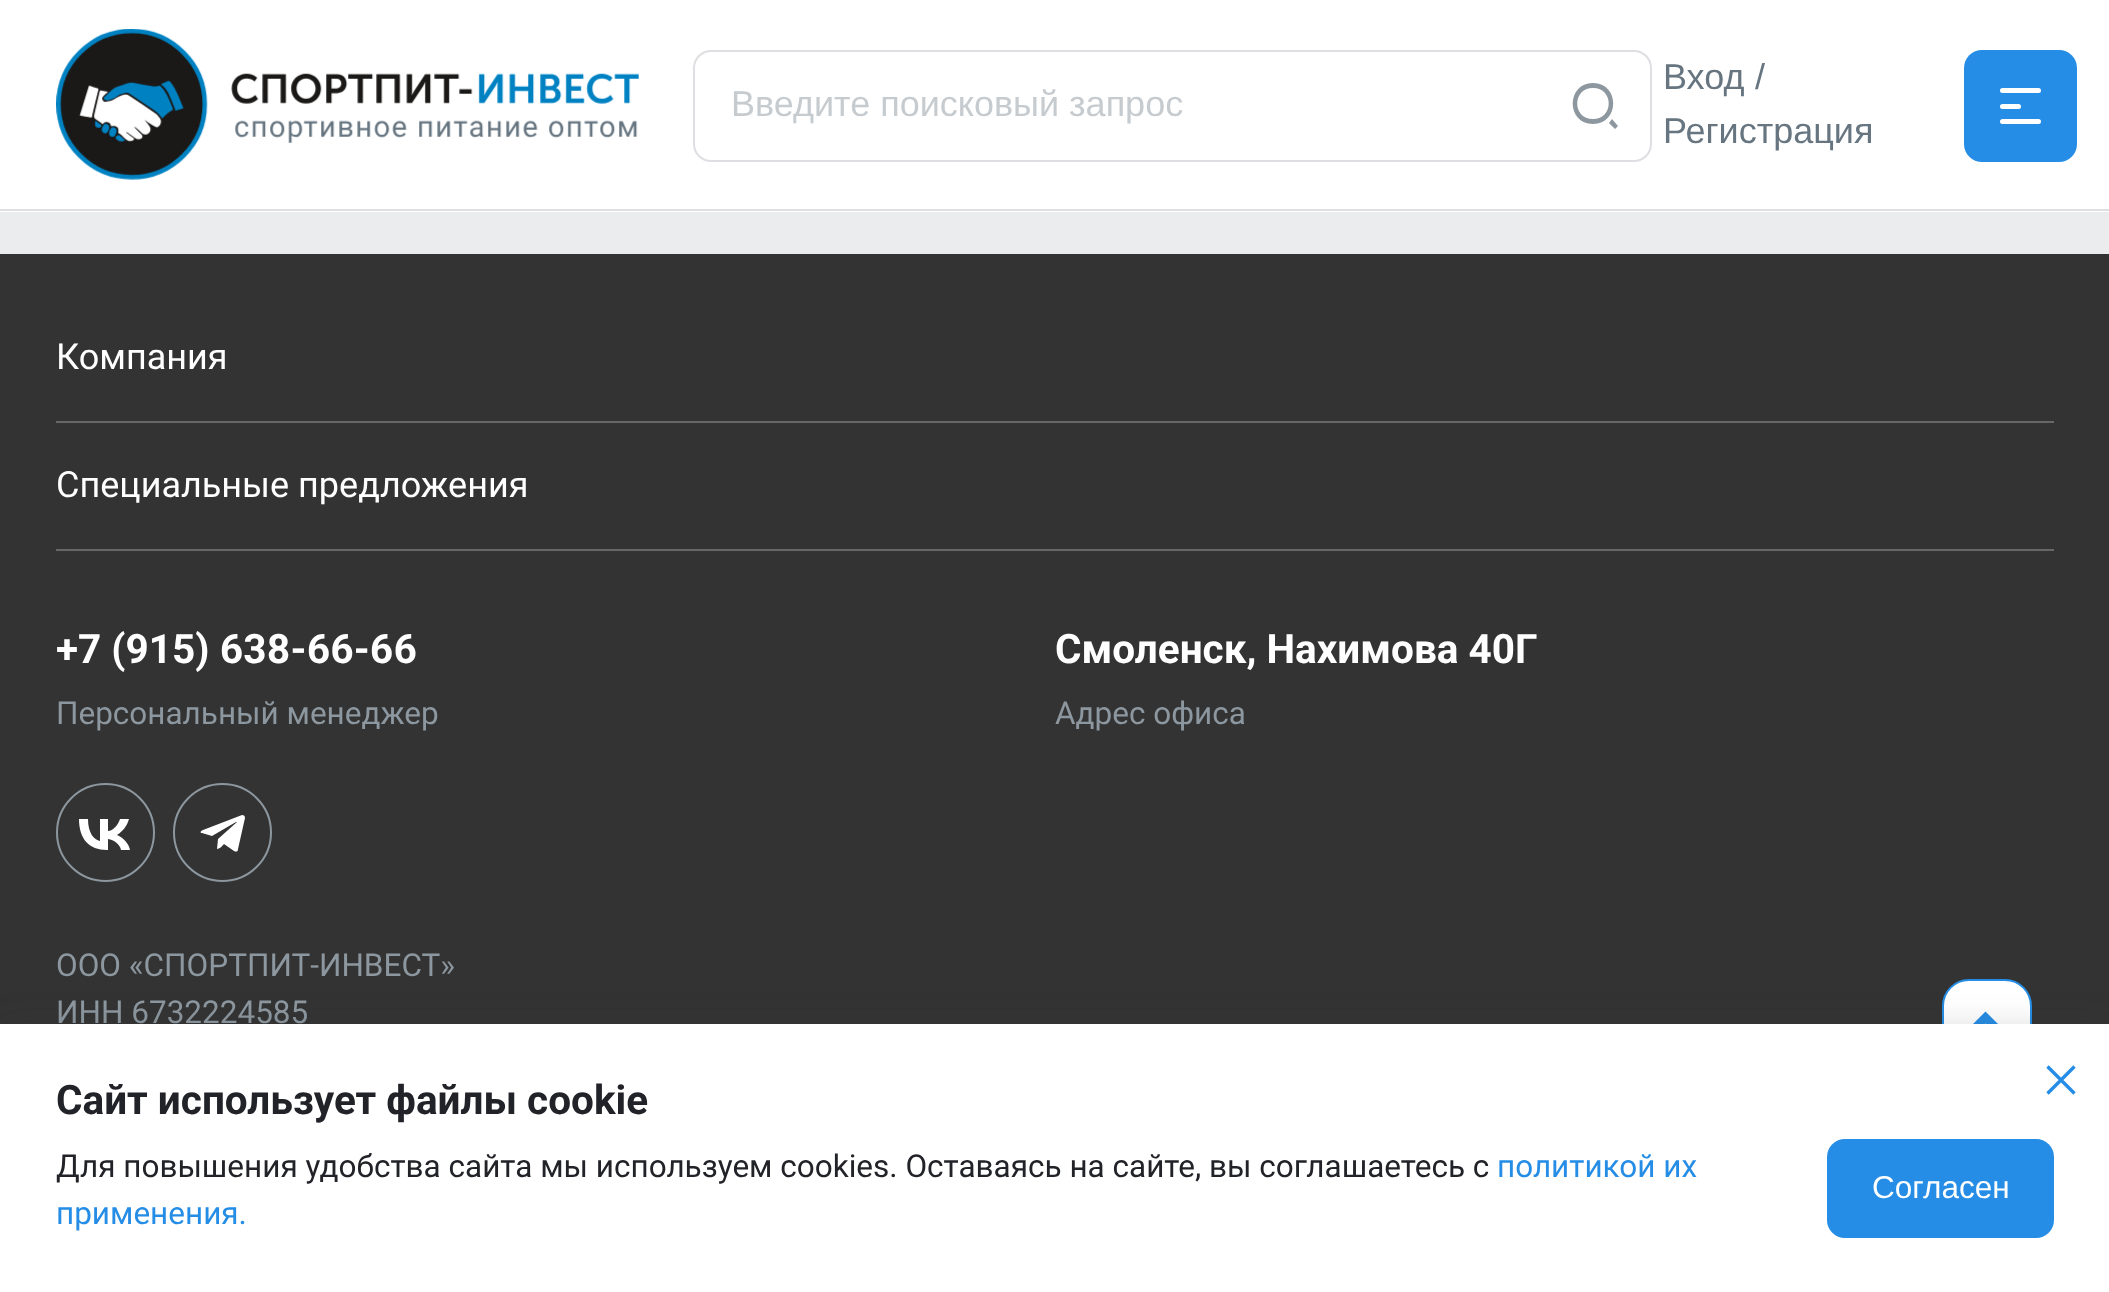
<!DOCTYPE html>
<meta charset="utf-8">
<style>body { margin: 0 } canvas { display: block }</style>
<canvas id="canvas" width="2109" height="1292"></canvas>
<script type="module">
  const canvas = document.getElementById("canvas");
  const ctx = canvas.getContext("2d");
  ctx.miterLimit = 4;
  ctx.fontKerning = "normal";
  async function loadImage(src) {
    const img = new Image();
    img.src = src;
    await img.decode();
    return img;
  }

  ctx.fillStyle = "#eaeced";
  ctx.fillRect(0, 0, 2109, 1292);
  ctx.fillStyle = "#ffffff";
  ctx.fillRect(0, 0, 2109, 212);
  ctx.fillStyle = "#dfdee2";
  ctx.fillRect(0, 209, 2109, 2);
  ctx.drawImage(await loadImage("img1.png"), 56, 29, 583, 151);
  ctx.beginPath();
  ctx.roundRect(694, 51, 957, 110, 17);
  ctx.strokeStyle = "#dfdee2";
  ctx.lineWidth = 2;
  ctx.stroke();
  ctx.font = "36px Liberation Sans";
  ctx.fillStyle = "#c6cbcf";
  ctx.fillText("Введите поисковый запрос", 731, 116);
  ctx.fillStyle = "#8c979f";
  ctx.beginPath();
  ctx.moveTo(1593, 83);
  ctx.bezierCurveTo(1620, 83, 1620, 124, 1593, 124);
  ctx.bezierCurveTo(1566, 124, 1566, 83, 1593, 83);
  ctx.closePath();
  ctx.moveTo(1593, 119);
  ctx.bezierCurveTo(1614, 119, 1614, 88, 1593, 88);
  ctx.bezierCurveTo(1572, 88, 1572, 119, 1593, 119);
  ctx.closePath();
  ctx.moveTo(1612, 119);
  ctx.lineTo(1618, 126);
  ctx.lineTo(1615, 129);
  ctx.lineTo(1609, 123);
  ctx.closePath();
  ctx.fill();
  ctx.fillStyle = "#258de5";
  ctx.beginPath();
  ctx.roundRect(1964, 50, 113, 112, 18);
  ctx.fill();
  ctx.fillStyle = "#ffffff";
  ctx.beginPath();
  ctx.roundRect(2000, 88, 41, 5, 2.5);
  ctx.fill();
  ctx.beginPath();
  ctx.roundRect(2000, 104, 21, 5, 2.5);
  ctx.fill();
  ctx.beginPath();
  ctx.roundRect(2000, 119, 41, 5, 2.5);
  ctx.fill();
  ctx.font = "36px Arimo";
  ctx.fillStyle = "#667580";
  ctx.fillText("Вход", 1663, 89);
  ctx.fillText("/", 1755, 89);
  ctx.fillText("Регистрация", 1663, 143);
  ctx.fillStyle = "#333333";
  ctx.fillRect(0, 254, 2109, 770);
  ctx.fillStyle = "#676668";
  ctx.fillRect(56, 421, 1998, 2);
  ctx.font = "36px Roboto";
  ctx.fillStyle = "#ffffff";
  ctx.fillText("Компания", 56, 369);
  ctx.fillStyle = "#676668";
  ctx.fillRect(56, 549, 1998, 2);
  ctx.fillStyle = "#ffffff";
  ctx.fillText("Специальные предложения", 56, 497);
  ctx.font = "bold 40.5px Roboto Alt";
  ctx.fillText("+7 (915) 638-66-66", 56, 663);
  ctx.font = "31.5px Roboto";
  ctx.fillStyle = "#8c979f";
  ctx.fillText("Персональный менеджер", 56, 724);
  ctx.font = "bold 40.5px Roboto";
  ctx.fillStyle = "#ffffff";
  ctx.fillText("Смоленск, Нахимова 40Г", 1055, 663);
  ctx.font = "31.5px Roboto";
  ctx.fillStyle = "#8c979f";
  ctx.fillText("Адрес офиса", 1055, 724);
  ctx.beginPath();
  ctx.arc(105.5, 832.5, 48.5, 0, Math.PI * 2);
  ctx.strokeStyle = "#8c979f";
  ctx.stroke();
  ctx.fillStyle = "#ffffff";
  ctx.beginPath();
  ctx.moveTo(107, 850);
  ctx.bezierCurveTo(89, 850, 79, 839, 79, 819);
  ctx.lineTo(88, 819);
  ctx.bezierCurveTo(88, 833, 94, 840, 100, 841);
  ctx.lineTo(100, 819);
  ctx.lineTo(108, 819);
  ctx.lineTo(108, 831);
  ctx.bezierCurveTo(113, 831, 118, 825, 120, 819);
  ctx.lineTo(129, 819);
  ctx.bezierCurveTo(127, 826, 123, 831, 117, 835);
  ctx.bezierCurveTo(124, 838, 129, 844, 130, 850);
  ctx.lineTo(121, 850);
  ctx.bezierCurveTo(120, 844, 114, 840, 108, 839);
  ctx.lineTo(108, 850);
  ctx.closePath();
  ctx.fill();
  ctx.beginPath();
  ctx.arc(222.5, 832.5, 48.5, 0, Math.PI * 2);
  ctx.stroke();
  ctx.beginPath();
  ctx.moveTo(218, 839);
  ctx.lineTo(217, 849);
  ctx.bezierCurveTo(220, 849, 223, 845, 224, 844);
  ctx.lineTo(234, 851);
  ctx.bezierCurveTo(236, 852, 238, 852, 238, 849);
  ctx.lineTo(245, 818);
  ctx.bezierCurveTo(245, 816, 244, 815, 242, 815);
  ctx.lineTo(203, 830);
  ctx.bezierCurveTo(200, 831, 200, 833, 202, 833);
  ctx.lineTo(212, 836);
  ctx.lineTo(236, 822);
  ctx.lineTo(237, 822);
  ctx.closePath();
  ctx.fill();
  ctx.fillStyle = "#8c979f";
  ctx.fillText("ООО «СПОРТПИТ-ИНВЕСТ»", 56, 976);
  ctx.fillText("ИНН 6732224585", 56, 1023);
  ctx.fillStyle = "#ffffff";
  ctx.beginPath();
  ctx.roundRect(1943, 980, 88, 88, 26);
  ctx.fill();
  ctx.strokeStyle = "#258de5";
  ctx.stroke();
  ctx.fillStyle = "#258de5";
  ctx.beginPath();
  ctx.moveTo(1985.5, 1011.5);
  ctx.lineTo(2003.5, 1029.5);
  ctx.lineTo(1997.5, 1035.5);
  ctx.lineTo(1985.5, 1023.5);
  ctx.lineTo(1973.5, 1035.5);
  ctx.lineTo(1967.5, 1029.5);
  ctx.closePath();
  ctx.fill();
  ctx.fillStyle = "rgba(51, 51, 51, 0.25)";
  ctx.filter = "blur(19px)";
  ctx.beginPath();
  ctx.rect(0, 1033, 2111, 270);
  ctx.fill();
  ctx.filter = "none";
  ctx.fillStyle = "#ffffff";
  ctx.fillRect(0, 1024, 2109, 268);
  ctx.beginPath();
  ctx.moveTo(2047.5, 1066.5);
  ctx.lineTo(2074.5, 1093.5);
  ctx.moveTo(2047.5, 1093.5);
  ctx.lineTo(2074.5, 1066.5);
  ctx.lineWidth = 3.4;
  ctx.stroke();
  ctx.font = "bold 40.5px Roboto";
  ctx.fillStyle = "#222328";
  ctx.fillText("Сайт использует файлы cookie", 56, 1114);
  ctx.font = "31.5px Roboto";
  ctx.fillText("Для повышения удобства сайта мы используем cookies. Оставаясь на сайте, вы соглашаетесь с", 56, 1177);
  ctx.fillStyle = "#258de5";
  ctx.fillText("политикой их", 1497, 1177);
  ctx.fillText("применения.", 56, 1224);
  ctx.beginPath();
  ctx.roundRect(1827, 1139, 227, 99, 18);
  ctx.fill();
  ctx.font = "31.5px Liberation Sans";
  ctx.fillStyle = "#ffffff";
  ctx.fillText("Согласен", 1872, 1198);
</script>
